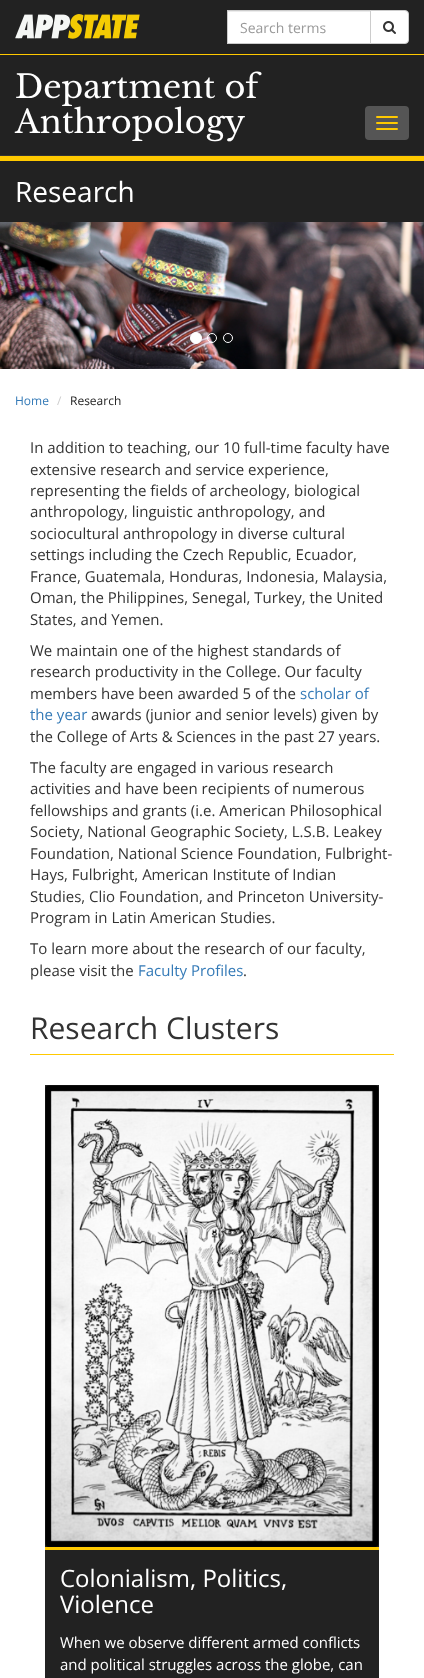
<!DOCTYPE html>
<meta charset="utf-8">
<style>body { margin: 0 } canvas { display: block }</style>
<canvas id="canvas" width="424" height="1678"></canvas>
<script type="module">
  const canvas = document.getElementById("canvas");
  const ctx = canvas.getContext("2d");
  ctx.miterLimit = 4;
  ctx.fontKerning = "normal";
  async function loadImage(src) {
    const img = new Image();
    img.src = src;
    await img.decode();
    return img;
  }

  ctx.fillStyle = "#333333";
  ctx.fillRect(0, 0, 424, 1678);
  ctx.fillStyle = "#222222";
  ctx.fillRect(0, 0, 424, 54);
  ctx.fillStyle = "#ffc900";
  ctx.fillRect(0, 54, 424, 1);
  ctx.drawImage(await loadImage("img1.png"), 15, 14, 125, 25);
  ctx.fillStyle = "#ffffff";
  ctx.fillRect(228, 12, 142, 31);
  ctx.fillStyle = "#ececec";
  ctx.fillRect(228, 11, 142, 1);
  ctx.strokeStyle = "#cccccc";
  ctx.strokeRect(227.5, 10.5, 143, 33);
  ctx.font = "14px Open Sans";
  ctx.fillStyle = "#999999";
  ctx.fillText("Search terms", 240, 33);
  ctx.fillStyle = "#ffffff";
  ctx.beginPath();
  ctx.roundRect(370.5, 10.5, 38, 33, [0, 3.5, 3.5, 0]);
  ctx.fill();
  ctx.stroke();
  ctx.drawImage(await loadImage("img2.png"), 383, 21, 13, 13);
  ctx.fillStyle = "#222222";
  ctx.fillRect(0, 55, 424, 100);
  ctx.font = "32px Libre Baskerville";
  ctx.fillStyle = "#ffffff";
  ctx.fillText("Department of", 15, 98);
  ctx.fillText("Anthropology", 15, 133);
  ctx.fillStyle = "#555555";
  ctx.beginPath();
  ctx.roundRect(365, 106, 44, 34, 4);
  ctx.fill();
  ctx.fillStyle = "#ffc900";
  ctx.beginPath();
  ctx.roundRect(376, 116, 22, 2, 1);
  ctx.fill();
  ctx.beginPath();
  ctx.roundRect(376, 122, 22, 2, 1);
  ctx.fill();
  ctx.beginPath();
  ctx.roundRect(376, 128, 22, 2, 1);
  ctx.fill();
  ctx.fillStyle = "#222222";
  ctx.fillRect(0, 161, 424, 61);
  ctx.fillStyle = "#ffc900";
  ctx.fillRect(0, 156, 424, 5);
  ctx.font = "28px Open Sans";
  ctx.fillStyle = "#ffffff";
  ctx.fillText("Research", 15, 202);
  ctx.drawImage(await loadImage("img3.png"), 0, 222, 424, 147);
  ctx.beginPath();
  ctx.arc(196, 338, 5.5, 0, Math.PI * 2);
  ctx.fill();
  ctx.strokeStyle = "#ffffff";
  ctx.stroke();
  ctx.beginPath();
  ctx.arc(212, 338, 4.5, 0, Math.PI * 2);
  ctx.stroke();
  ctx.beginPath();
  ctx.arc(228, 338, 4.5, 0, Math.PI * 2);
  ctx.stroke();
  ctx.fillRect(0, 369, 424, 1309);
  ctx.font = "12px Open Sans";
  ctx.fillStyle = "#347ab7";
  ctx.fillText("Home", 15, 405);
  ctx.fillStyle = "#cccccc";
  ctx.fillText("/", 57, 405);
  ctx.fillStyle = "#222222";
  ctx.fillText("Research", 70, 405);
  ctx.font = "15px Open Sans";
  ctx.fillStyle = "#333333";
  ctx.fillText("In addition to teaching, our 10 full-time faculty have", 30, 453);
  ctx.fillText("extensive research and service experience,", 30, 475);
  ctx.fillText("representing the fields of archeology, biological", 30, 496);
  ctx.fillText("anthropology, linguistic anthropology, and", 30, 517);
  ctx.fillText("sociocultural anthropology in diverse cultural", 30, 539);
  ctx.fillText("settings including the Czech Republic, Ecuador,", 30, 560);
  ctx.fillText("France, Guatemala, Honduras, Indonesia, Malaysia,", 30, 582);
  ctx.fillText("Oman, the Philippines, Senegal, Turkey, the United", 30, 603);
  ctx.fillText("States, and Yemen.", 30, 625);
  ctx.fillText("We maintain one of the highest standards of", 30, 656);
  ctx.fillText("research productivity in the College. Our faculty", 30, 677);
  ctx.fillText("members have been awarded 5 of the", 30, 699);
  ctx.fillStyle = "#347ab7";
  ctx.fillText("scholar of", 300, 699);
  ctx.fillText("the year", 30, 720);
  ctx.fillStyle = "#333333";
  ctx.fillText("awards (junior and senior levels) given by", 91, 720);
  ctx.fillText("the College of Arts & Sciences in the past 27 years.", 30, 742);
  ctx.fillText("The faculty are engaged in various research", 30, 773);
  ctx.fillText("activities and have been recipients of numerous", 30, 794);
  ctx.fillText("fellowships and grants (i.e. American Philosophical", 30, 816);
  ctx.fillText("Society, National Geographic Society, L.S.B. Leakey", 30, 837);
  ctx.fillText("Foundation, National Science Foundation, Fulbright-", 30, 859);
  ctx.fillText("Hays, Fulbright, American Institute of Indian", 30, 880);
  ctx.fillText("Studies, Clio Foundation, and Princeton University-", 30, 902);
  ctx.fillText("Program in Latin American Studies.", 30, 923);
  ctx.fillText("To learn more about the research of our faculty,", 30, 954);
  ctx.fillText("please visit the", 30, 976);
  ctx.fillStyle = "#347ab7";
  ctx.fillText("Faculty Profiles", 138, 976);
  ctx.fillStyle = "#333333";
  ctx.fillText(".", 243, 976);
  ctx.fillStyle = "#ffc900";
  ctx.fillRect(30, 1054, 364, 1);
  ctx.font = "30px Open Sans";
  ctx.fillStyle = "#333333";
  ctx.fillText("Research Clusters", 30, 1039);
  ctx.fillStyle = "#222222";
  ctx.fillRect(45, 1085, 334, 593);
  ctx.drawImage(await loadImage("img4.png"), 45, 1085, 334, 462);
  ctx.fillStyle = "#ffc900";
  ctx.fillRect(45, 1547, 334, 3);
  ctx.font = "24px Open Sans";
  ctx.fillStyle = "#ffffff";
  ctx.fillText("Colonialism, Politics,", 60, 1587);
  ctx.fillText("Violence", 60, 1613);
  ctx.font = "15px Open Sans";
  ctx.fillText("When we observe different armed conflicts", 60, 1648);
  ctx.fillText("and political struggles across the globe, can", 60, 1670);
</script>
